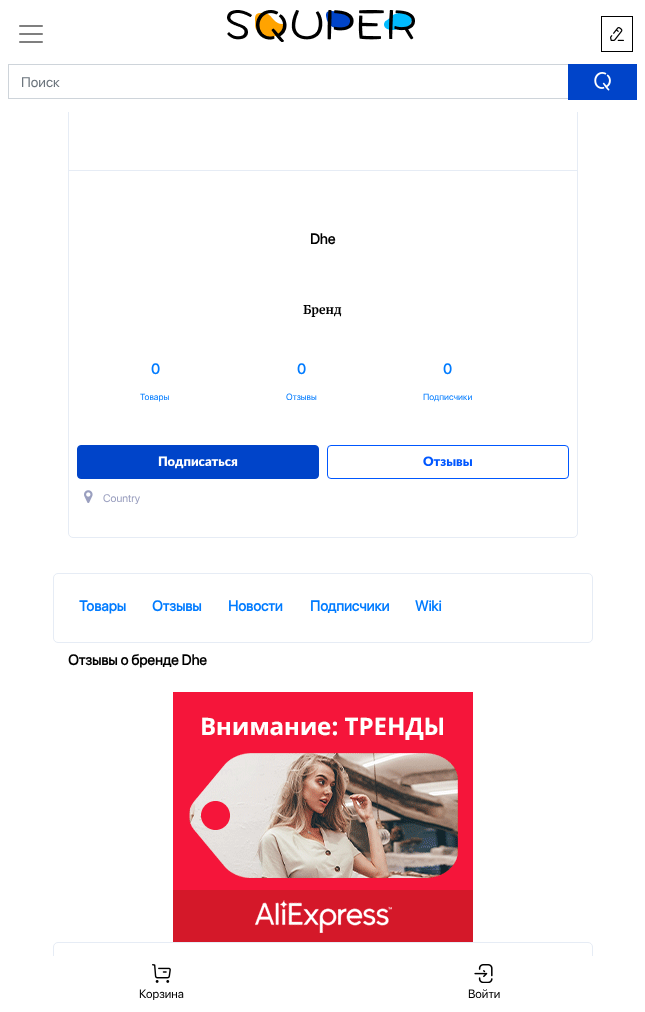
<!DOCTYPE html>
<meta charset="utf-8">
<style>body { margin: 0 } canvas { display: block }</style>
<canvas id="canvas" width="645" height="1012"></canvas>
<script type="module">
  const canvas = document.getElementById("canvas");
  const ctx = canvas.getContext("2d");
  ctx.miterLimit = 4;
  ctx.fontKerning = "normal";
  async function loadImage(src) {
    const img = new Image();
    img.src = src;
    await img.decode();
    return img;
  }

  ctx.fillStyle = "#ffffff";
  ctx.fillRect(0, 0, 645, 1012);
  ctx.beginPath();
  ctx.roundRect(68.5, 70.5, 509, 467, 4.5);
  ctx.strokeStyle = "#e6ecf5";
  ctx.stroke();
  ctx.fillRect(68, 70, 510, 42);
  ctx.drawImage(await loadImage("img1.png"), 19, 25, 24, 18);
  ctx.drawImage(await loadImage("img2.png"), 227, 10, 188, 32);
  ctx.strokeStyle = "#000000";
  ctx.strokeRect(601.5, 16.5, 31, 35);
  ctx.drawImage(await loadImage("img3.png"), 610, 27, 14, 14);
  ctx.strokeStyle = "#ced4da";
  ctx.strokeRect(8.5, 64.5, 560, 34);
  ctx.font = "14px SF Pro Display";
  ctx.fillStyle = "#6c757d";
  ctx.fillText("Поиск", 21, 87);
  ctx.fillStyle = "#0044c9";
  ctx.fillRect(568, 64, 69, 36);
  ctx.drawImage(await loadImage("img4.png"), 594, 72, 17, 19);
  ctx.fillStyle = "#e6ecf5";
  ctx.fillRect(69, 170, 508, 1);
  ctx.font = "bold 14.5px SF Pro Display";
  ctx.fillStyle = "#000000";
  ctx.fillText("Dhe", 310, 244);
  ctx.font = "bold 12px Merriweather";
  ctx.fillText("Бренд", 303, 314);
  ctx.font = "bold 14.5px SF Pro Display";
  ctx.fillStyle = "#007bff";
  ctx.fillText("0", 151, 374);
  ctx.font = "9px SF Pro Display";
  ctx.fillText("Товары", 140, 400);
  ctx.font = "bold 14.5px SF Pro Display";
  ctx.fillText("0", 297, 374);
  ctx.font = "9px SF Pro Display";
  ctx.fillText("Отзывы", 286, 400);
  ctx.font = "bold 14.5px SF Pro Display";
  ctx.fillText("0", 443, 374);
  ctx.font = "9px SF Pro Display";
  ctx.fillText("Подписчики", 423, 400);
  ctx.fillStyle = "#0044c9";
  ctx.beginPath();
  ctx.roundRect(77.5, 445.5, 241, 33, 3.5);
  ctx.fill();
  ctx.strokeStyle = "#0044c9";
  ctx.stroke();
  ctx.font = "900 13px Lato";
  ctx.fillStyle = "#ffffff";
  ctx.fillText("Подписаться", 158, 466);
  ctx.beginPath();
  ctx.roundRect(327.5, 445.5, 241, 33, 3.5);
  ctx.strokeStyle = "#0057ff";
  ctx.stroke();
  ctx.fillStyle = "#0057ff";
  ctx.fillText("Отзывы", 423, 466);
  ctx.drawImage(await loadImage("img5.png"), 84, 490, 9, 13);
  ctx.font = "11px SF Pro Display";
  ctx.fillStyle = "#9a9fbf";
  ctx.fillText("Country", 103, 502);
  ctx.beginPath();
  ctx.roundRect(53.5, 573.5, 539, 69, 4.5);
  ctx.strokeStyle = "#e6ecf5";
  ctx.stroke();
  ctx.font = "bold 14.5px SF Pro Display";
  ctx.fillStyle = "#007bff";
  ctx.fillText("Товары", 79, 611);
  ctx.fillText("Отзывы", 152, 611);
  ctx.fillText("Новости", 228, 611);
  ctx.fillText("Подписчики", 310, 611);
  ctx.fillText("Wiki", 415, 611);
  ctx.fillStyle = "#000000";
  ctx.fillText("Отзывы о бренде Dhe", 68, 665);
  ctx.drawImage(await loadImage("img6.png"), 173, 692, 300, 250);
  ctx.beginPath();
  ctx.roundRect(53.5, 942.5, 539, 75, 4.5);
  ctx.stroke();
  ctx.fillStyle = "#ffffff";
  ctx.fillRect(53, 956, 540, 56);
  ctx.drawImage(await loadImage("img7.png"), 152, 964, 19, 19);
  ctx.font = "12px SF Pro Display";
  ctx.fillStyle = "#000000";
  ctx.fillText("Корзина", 139, 998);
  ctx.drawImage(await loadImage("img8.png"), 474, 964, 19, 19);
  ctx.fillText("Войти", 468, 998);
</script>
